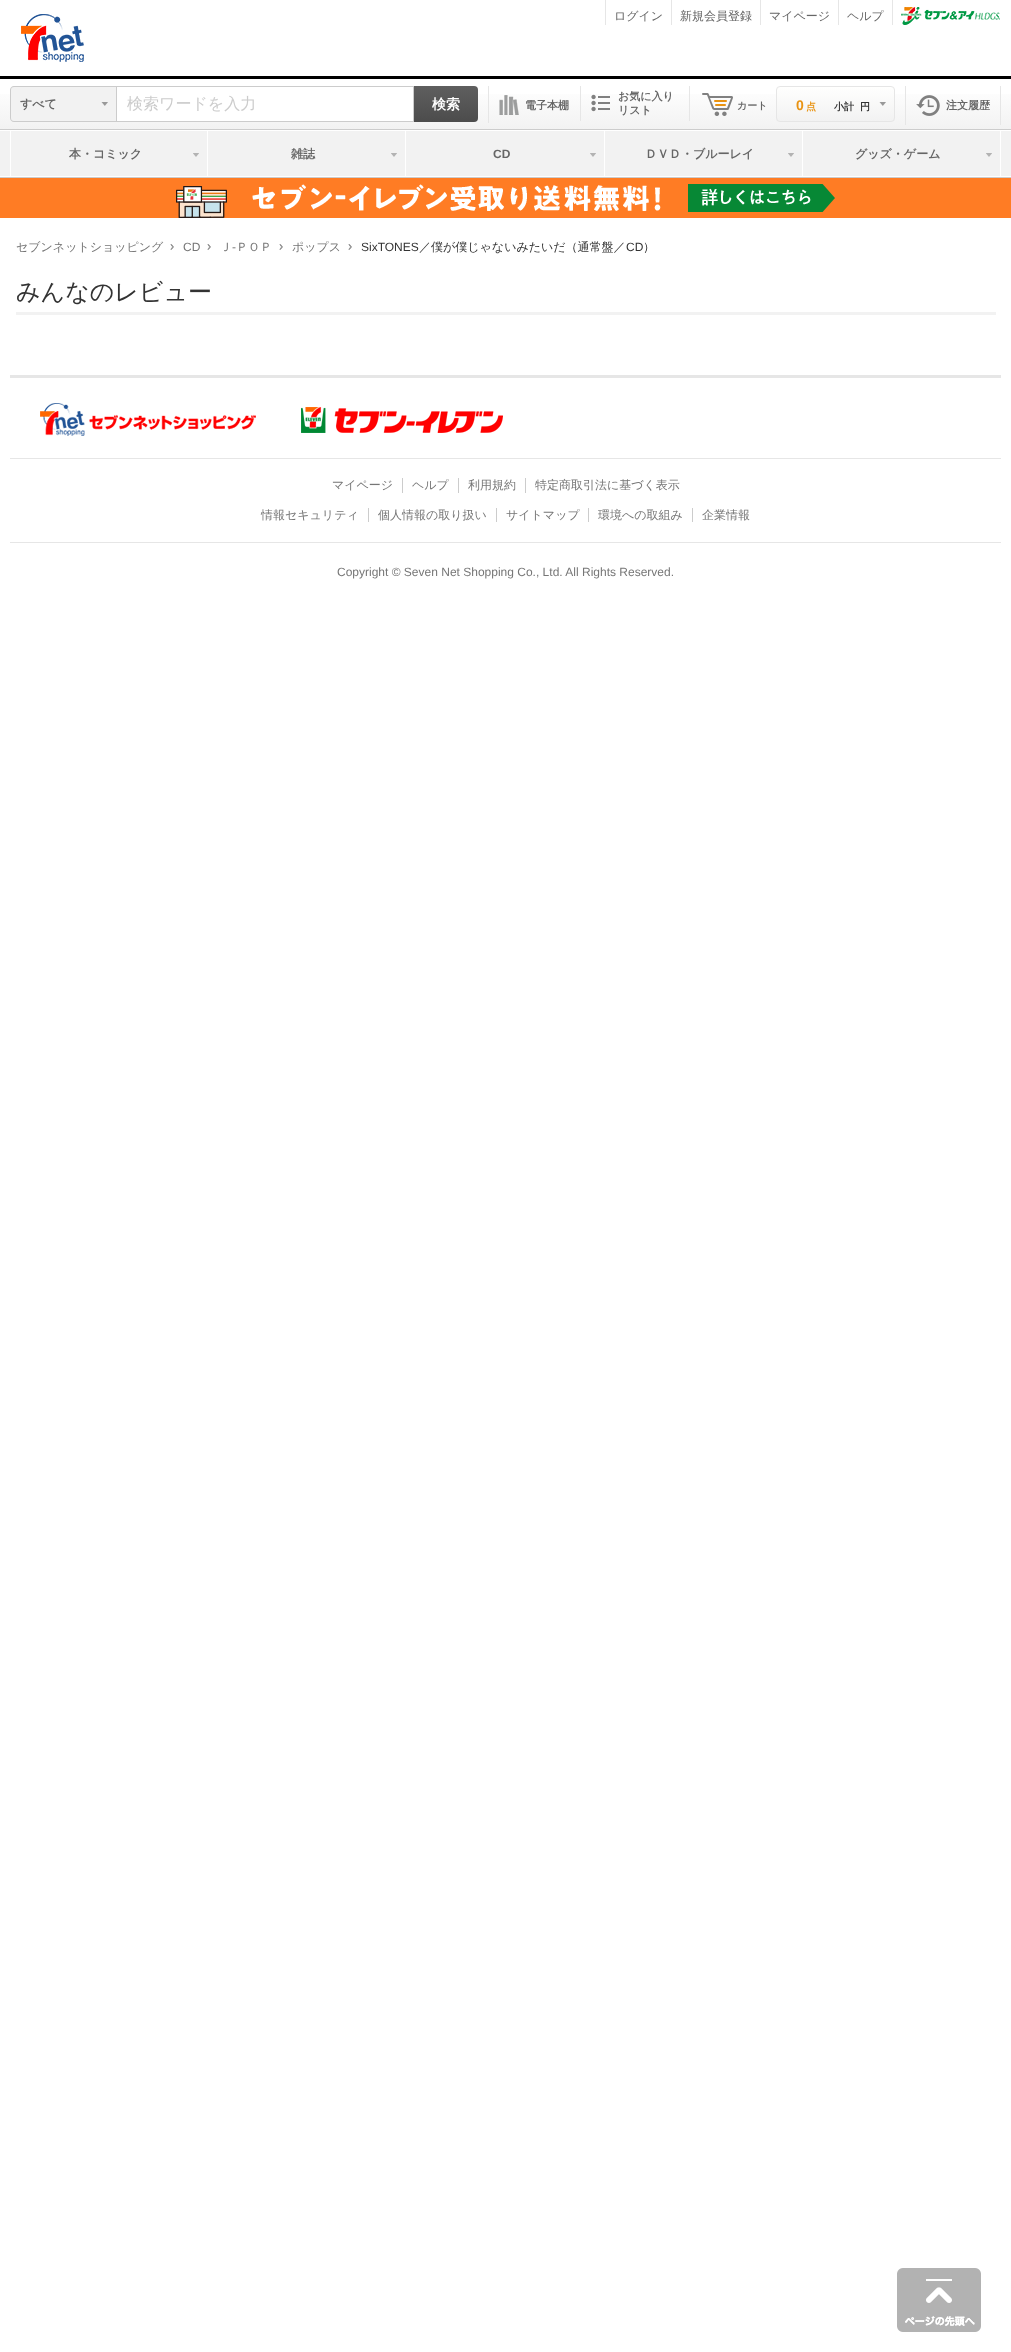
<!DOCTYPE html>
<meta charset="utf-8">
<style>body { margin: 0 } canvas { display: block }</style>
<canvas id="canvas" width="1011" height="2352"></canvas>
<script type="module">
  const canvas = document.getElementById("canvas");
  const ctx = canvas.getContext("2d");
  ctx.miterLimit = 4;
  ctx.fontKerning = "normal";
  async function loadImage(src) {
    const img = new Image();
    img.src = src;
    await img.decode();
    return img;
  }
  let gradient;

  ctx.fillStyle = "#ffffff";
  ctx.fillRect(0, 0, 1011, 2352);
  ctx.fillStyle = "#000000";
  ctx.fillRect(0, 76, 1011, 3);
  ctx.drawImage(await loadImage("img1.png"), 21, 14, 63, 48);
  ctx.fillStyle = "#e6e6e6";
  ctx.fillRect(605, 0, 1, 25);
  ctx.font = "500 12px WenQuanYi Zen Hei";
  ctx.fillStyle = "#666666";
  ctx.fillText("ログイン", 614, 20);
  ctx.fillStyle = "#e6e6e6";
  ctx.fillRect(671, 0, 1, 25);
  ctx.fillStyle = "#666666";
  ctx.fillText("新規会員登録", 680, 20);
  ctx.fillStyle = "#e6e6e6";
  ctx.fillRect(760, 0, 1, 25);
  ctx.fillStyle = "#666666";
  ctx.fillText("マイページ", 769, 20);
  ctx.fillStyle = "#e6e6e6";
  ctx.fillRect(838, 0, 1, 25);
  ctx.fillStyle = "#666666";
  ctx.fillText("ヘルプ", 847, 20);
  ctx.fillStyle = "#e6e6e6";
  ctx.fillRect(892, 0, 1, 25);
  ctx.drawImage(await loadImage("img2.png"), 901, 7, 99, 18);
  gradient = ctx.createLinearGradient(506, 86, 506, 129);
  gradient.addColorStop(0, "#ffffff");
  gradient.addColorStop(1, "#f2f2f2");
  ctx.fillStyle = gradient;
  ctx.fillRect(0, 94, 1011, 35);
  ctx.fillStyle = "#cccccc";
  ctx.fillRect(0, 129, 1011, 1);
  ctx.fillStyle = "#f2f2f2";
  ctx.beginPath();
  ctx.roundRect(10, 86, 106, 36, [4, 0, 0, 4]);
  ctx.fill();
  ctx.drawImage(await loadImage("img3.png"), 101, 102, 7, 4);
  ctx.fillStyle = "#cccccc";
  ctx.beginPath();
  ctx.moveTo(14, 86);
  ctx.lineTo(116, 86);
  ctx.lineTo(116, 122);
  ctx.lineTo(14, 122);
  ctx.bezierCurveTo(12, 122, 10, 120, 10, 118);
  ctx.lineTo(10, 90);
  ctx.bezierCurveTo(10, 88, 12, 86, 14, 86);
  ctx.closePath();
  ctx.moveTo(14, 87);
  ctx.lineTo(116, 87);
  ctx.lineTo(116, 121);
  ctx.lineTo(14, 121);
  ctx.bezierCurveTo(12, 121, 11, 120, 11, 118);
  ctx.lineTo(11, 90);
  ctx.bezierCurveTo(11, 88, 12, 87, 14, 87);
  ctx.closePath();
  ctx.fill("evenodd");
  ctx.font = "bold 12px WenQuanYi Zen Hei";
  ctx.fillStyle = "#666666";
  ctx.fillText("すべて", 20, 108);
  ctx.fillStyle = "#ffffff";
  ctx.fillRect(117, 94, 296, 27);
  ctx.strokeStyle = "#cccccc";
  ctx.strokeRect(116.5, 86.5, 297, 35);
  ctx.font = "500 16px WenQuanYi Zen Hei";
  ctx.fillStyle = "#cccccc";
  ctx.fillText("検索ワードを入力", 127, 109);
  gradient = ctx.createLinearGradient(446, 86, 446, 122);
  gradient.addColorStop(0, "#5f5f5f");
  gradient.addColorStop(1, "#4c4c4c");
  ctx.fillStyle = gradient;
  ctx.beginPath();
  ctx.roundRect(414, 86, 64, 36, [0, 4, 4, 0]);
  ctx.fill();
  ctx.font = "bold 14px WenQuanYi Zen Hei";
  ctx.fillStyle = "#ffffff";
  ctx.fillText("検索", 432, 109);
  ctx.fillStyle = "#e6e6e6";
  ctx.fillRect(488, 86, 1, 37);
  ctx.drawImage(await loadImage("img4.png"), 499, 95, 20, 20);
  ctx.font = "bold 11px WenQuanYi Zen Hei";
  ctx.fillStyle = "#666666";
  ctx.fillText("電子本棚", 525, 109);
  ctx.fillStyle = "#e6e6e6";
  ctx.fillRect(689, 86, 1, 35);
  ctx.fillRect(580, 86, 1, 35);
  ctx.drawImage(await loadImage("img5.png"), 591, 94, 19, 18);
  ctx.fillStyle = "#666666";
  ctx.fillText("お気に入り", 618, 100);
  ctx.fillText("リスト", 618, 114);
  ctx.drawImage(await loadImage("img6.png"), 702, 93, 31, 23);
  ctx.font = "bold 10px WenQuanYi Zen Hei";
  ctx.fillText("カート", 737, 109);
  ctx.save();
  ctx.beginPath();
  ctx.roundRect(776, 86, 119, 36, 4);
  ctx.clip();
  gradient = ctx.createLinearGradient(836, 87, 836, 121);
  gradient.addColorStop(0, "#fffffe");
  gradient.addColorStop(1, "#f2f2f2");
  ctx.fillStyle = gradient;
  ctx.fillRect(776, 87, 119, 34);
  ctx.restore();
  ctx.beginPath();
  ctx.roundRect(776.5, 86.5, 118, 35, 3.5);
  ctx.strokeStyle = "#e6e6e6";
  ctx.stroke();
  ctx.drawImage(await loadImage("img7.png"), 879, 102, 7, 4);
  ctx.font = "bold 14px Liberation Sans";
  ctx.fillStyle = "#e99312";
  ctx.fillText("0", 796, 110);
  ctx.font = "bold 10px WenQuanYi Zen Hei";
  ctx.fillText("点", 806, 110);
  ctx.fillStyle = "#333333";
  ctx.fillText("小計", 834, 110);
  ctx.fillText("円", 860, 110);
  ctx.fillStyle = "#e6e6e6";
  ctx.fillRect(1000, 86, 1, 39);
  ctx.fillRect(905, 86, 1, 39);
  ctx.drawImage(await loadImage("img8.png"), 916, 95, 24, 21);
  ctx.font = "bold 11px WenQuanYi Zen Hei";
  ctx.fillStyle = "#666666";
  ctx.fillText("注文履歴", 946, 109);
  ctx.fillStyle = "#cccccc";
  ctx.fillRect(0, 177, 1011, 1);
  ctx.fillStyle = "#f2f2f2";
  ctx.fillRect(0, 131, 1011, 45);
  ctx.fillStyle = "#ffffff";
  ctx.fillRect(207, 131, 1, 46);
  ctx.fillRect(10, 131, 1, 46);
  ctx.drawImage(await loadImage("img9.png"), 193, 153, 6, 4);
  ctx.font = "bold 12px WenQuanYi Zen Hei";
  ctx.fillStyle = "#666666";
  ctx.fillText("本・コミック", 69, 158);
  ctx.fillStyle = "#ffffff";
  ctx.fillRect(405, 131, 1, 46);
  ctx.drawImage(await loadImage("img9.png"), 391, 153, 6, 4);
  ctx.fillStyle = "#666666";
  ctx.fillText("雑誌", 291, 158);
  ctx.fillStyle = "#ffffff";
  ctx.fillRect(604, 131, 1, 46);
  ctx.drawImage(await loadImage("img9.png"), 590, 153, 6, 4);
  ctx.font = "bold 12px Liberation Sans";
  ctx.fillStyle = "#666666";
  ctx.fillText("CD", 493, 158);
  ctx.fillStyle = "#ffffff";
  ctx.fillRect(802, 131, 1, 46);
  ctx.drawImage(await loadImage("img9.png"), 788, 153, 6, 4);
  ctx.font = "bold 12px WenQuanYi Zen Hei";
  ctx.fillStyle = "#666666";
  ctx.fillText("ＤＶＤ・ブルーレイ", 645, 158);
  ctx.fillStyle = "#ffffff";
  ctx.fillRect(1000, 131, 1, 46);
  ctx.drawImage(await loadImage("img9.png"), 986, 153, 6, 4);
  ctx.fillStyle = "#666666";
  ctx.fillText("グッズ・ゲーム", 855, 158);
  ctx.fillStyle = "#ff7c24";
  ctx.fillRect(0, 178, 1011, 40);
  ctx.drawImage(await loadImage("img10.png"), 176, 184, 659, 34);
  ctx.font = "500 12px WenQuanYi Zen Hei";
  ctx.fillStyle = "#767676";
  ctx.fillText("セブンネットショッピング", 16, 251);
  ctx.drawImage(await loadImage("img11.png"), 170, 244, 4, 6);
  ctx.font = "12px Liberation Sans";
  ctx.fillText("CD", 183, 251);
  ctx.drawImage(await loadImage("img11.png"), 207, 244, 4, 6);
  ctx.font = "500 12px WenQuanYi Zen Hei";
  ctx.fillText("Ｊ", 220, 251);
  ctx.font = "12px Liberation Sans";
  ctx.fillText("‐", 232, 251);
  ctx.font = "500 12px WenQuanYi Zen Hei";
  ctx.fillText("ＰＯＰ", 236, 251);
  ctx.drawImage(await loadImage("img11.png"), 279, 244, 4, 6);
  ctx.fillText("ポップス", 292, 251);
  ctx.drawImage(await loadImage("img11.png"), 348, 244, 4, 6);
  ctx.font = "12px Liberation Sans";
  ctx.fillStyle = "#333333";
  ctx.fillText("SixTONES", 361, 251);
  ctx.font = "500 12px WenQuanYi Zen Hei";
  ctx.fillText("／僕が僕じゃないみたいだ（通常盤／", 419, 251);
  ctx.font = "12px Liberation Sans";
  ctx.fillText("CD", 626, 251);
  ctx.font = "500 12px WenQuanYi Zen Hei";
  ctx.fillText("）", 643, 251);
  ctx.fillStyle = "#f2f2f2";
  ctx.fillRect(16, 312, 980, 3);
  ctx.font = "500 24px WenQuanYi Zen Hei";
  ctx.fillStyle = "#333333";
  ctx.fillText("みんなのレビュー", 16, 300);
  ctx.fillStyle = "#e6e6e6";
  ctx.fillRect(10, 375, 991, 3);
  ctx.fillRect(10, 458, 991, 1);
  ctx.drawImage(await loadImage("img12.png"), 40, 403, 216, 33);
  ctx.drawImage(await loadImage("img13.png"), 301, 407, 202, 26);
  ctx.font = "500 12px WenQuanYi Zen Hei";
  ctx.fillStyle = "#767676";
  ctx.fillText("マイページ", 332, 489);
  ctx.fillStyle = "#cccccc";
  ctx.fillRect(402, 478, 1, 15);
  ctx.fillStyle = "#767676";
  ctx.fillText("ヘルプ", 412, 489);
  ctx.fillStyle = "#cccccc";
  ctx.fillRect(458, 478, 1, 15);
  ctx.fillStyle = "#767676";
  ctx.fillText("利用規約", 468, 489);
  ctx.fillStyle = "#cccccc";
  ctx.fillRect(525, 478, 1, 15);
  ctx.fillStyle = "#767676";
  ctx.fillText("特定商取引法に基づく表示", 535, 489);
  ctx.fillText("情報セキュリティ", 261, 519);
  ctx.fillStyle = "#cccccc";
  ctx.fillRect(368, 508, 1, 14);
  ctx.fillStyle = "#767676";
  ctx.fillText("個人情報の取り扱い", 378, 519);
  ctx.fillStyle = "#cccccc";
  ctx.fillRect(496, 508, 1, 14);
  ctx.fillStyle = "#767676";
  ctx.fillText("サイトマップ", 506, 519);
  ctx.fillStyle = "#cccccc";
  ctx.fillRect(588, 508, 1, 14);
  ctx.fillStyle = "#767676";
  ctx.fillText("環境への取組み", 598, 519);
  ctx.fillStyle = "#cccccc";
  ctx.fillRect(692, 508, 1, 14);
  ctx.fillStyle = "#767676";
  ctx.fillText("企業情報", 702, 519);
  ctx.fillStyle = "#e6e6e6";
  ctx.fillRect(10, 542, 991, 1);
  ctx.font = "12px Liberation Sans";
  ctx.fillStyle = "#767676";
  ctx.fillText("Copyright © Seven Net Shopping Co., Ltd. All Rights Reserved.", 337, 576);
  ctx.drawImage(await loadImage("img14.png"), 897, 2268, 84, 64);
</script>
